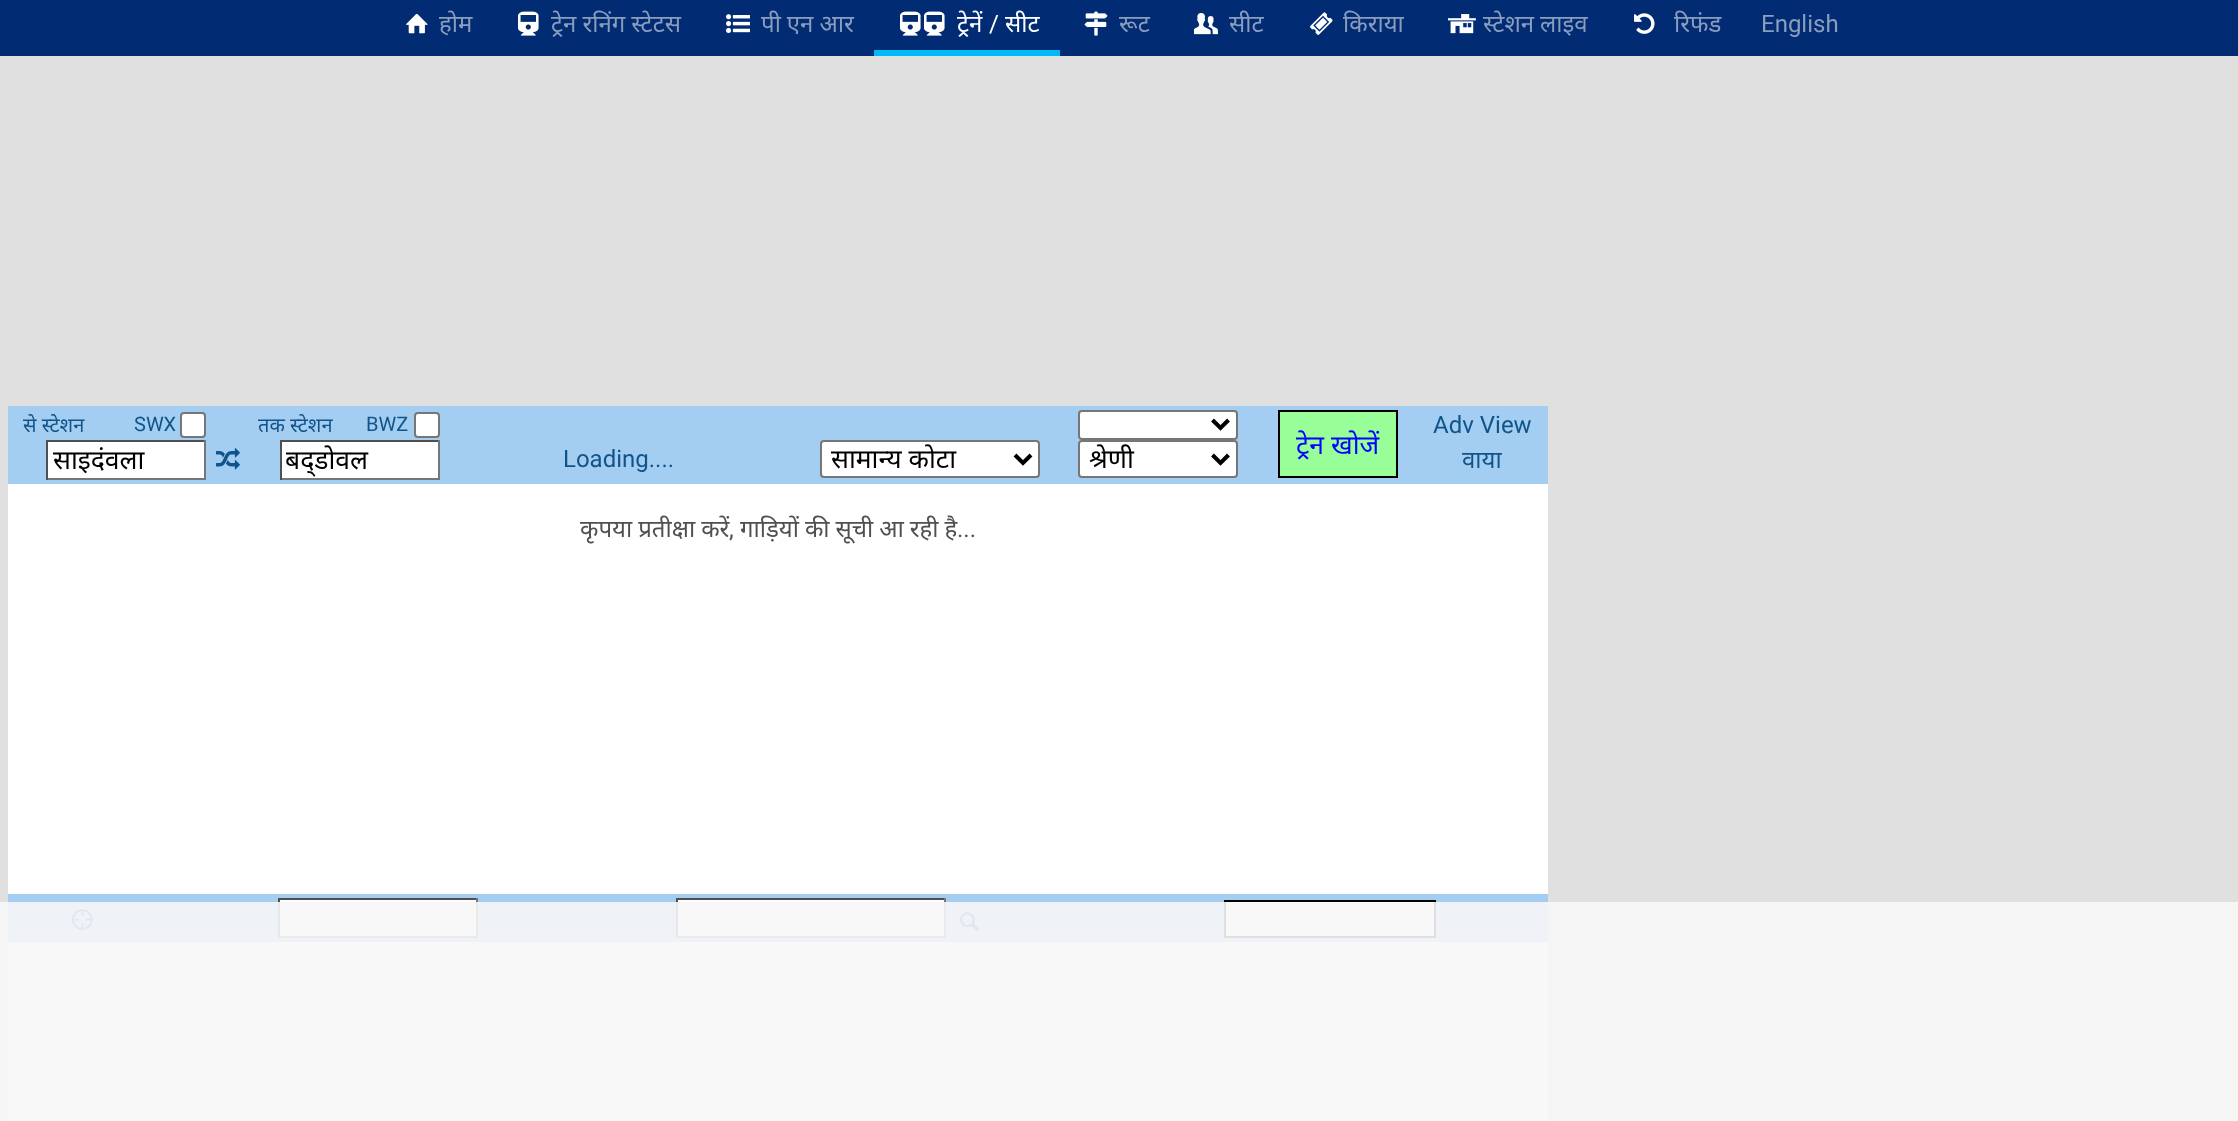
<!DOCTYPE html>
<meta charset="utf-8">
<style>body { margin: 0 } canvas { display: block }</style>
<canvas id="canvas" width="2238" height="1121"></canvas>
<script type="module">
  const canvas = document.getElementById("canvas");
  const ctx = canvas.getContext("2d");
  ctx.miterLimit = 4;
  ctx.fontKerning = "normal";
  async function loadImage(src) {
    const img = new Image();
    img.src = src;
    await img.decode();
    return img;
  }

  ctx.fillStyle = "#e0e0e0";
  ctx.fillRect(0, 0, 2238, 1121);
  ctx.fillStyle = "#012b72";
  ctx.fillRect(0, 0, 2238, 56);
  ctx.drawImage(await loadImage("img1.png"), 406, 13, 22, 21);
  ctx.font = "24px Noto Sans";
  ctx.fillStyle = "#8a9dbe";
  ctx.fillText("होम", 439, 32);
  ctx.drawImage(await loadImage("img2.png"), 518, 11, 21, 25);
  ctx.wordSpacing = "-0.25px";
  ctx.fillText("ट्रेन रनिंग स्टेटस", 551, 32);
  ctx.drawImage(await loadImage("img3.png"), 726, 14, 24, 19);
  ctx.fillText("पी एन आर", 761, 32);
  ctx.fillStyle = "#00b9f5";
  ctx.fillRect(874, 50, 186, 6);
  ctx.drawImage(await loadImage("img2.png"), 900, 11, 21, 25);
  ctx.drawImage(await loadImage("img2.png"), 924, 11, 21, 25);
  ctx.wordSpacing = "0px";
  ctx.fillStyle = "#ffffff";
  ctx.fillText("ट्रेनें", 957, 32);
  ctx.font = "24px Roboto";
  ctx.fillText("/", 989, 32);
  ctx.font = "24px Noto Sans";
  ctx.fillText("सीट", 1005, 32);
  ctx.drawImage(await loadImage("img4.png"), 1084, 11, 24, 25);
  ctx.fillStyle = "#8a9dbe";
  ctx.fillText("रूट", 1119, 32);
  ctx.drawImage(await loadImage("img5.png"), 1194, 13, 24, 22);
  ctx.fillText("सीट", 1229, 32);
  ctx.drawImage(await loadImage("img6.png"), 1310, 12, 23, 23);
  ctx.fillText("किराया", 1343, 32);
  ctx.drawImage(await loadImage("img7.png"), 1448, 14, 28, 20);
  ctx.wordSpacing = "-0.25px";
  ctx.fillText("स्टेशन लाइव", 1483, 32);
  ctx.drawImage(await loadImage("img8.png"), 1634, 13, 21, 21);
  ctx.wordSpacing = "0px";
  ctx.fillText("रिफंड", 1674, 32);
  ctx.font = "24px Roboto";
  ctx.fillText("English", 1761, 32);
  ctx.fillStyle = "#ffffff";
  ctx.fillRect(8, 484, 1540, 637);
  ctx.fillStyle = "#a4cef1";
  ctx.fillRect(8, 406, 1540, 78);
  ctx.font = "20px Noto Sans";
  ctx.fillStyle = "#11548b";
  ctx.fillText("से स्टेशन", 23, 432);
  ctx.font = "20px Roboto";
  ctx.fillText("SWX", 134, 431);
  ctx.fillStyle = "#ffffff";
  ctx.beginPath();
  ctx.roundRect(181, 413, 24, 24, 3);
  ctx.fill();
  ctx.strokeStyle = "#767676";
  ctx.lineWidth = 2;
  ctx.stroke();
  ctx.font = "20px Noto Sans";
  ctx.fillStyle = "#11548b";
  ctx.fillText("तक स्टेशन", 258, 432);
  ctx.font = "20px Roboto";
  ctx.fillText("BWZ", 366, 431);
  ctx.fillStyle = "#ffffff";
  ctx.beginPath();
  ctx.roundRect(415, 413, 24, 24, 3);
  ctx.fill();
  ctx.stroke();
  ctx.beginPath();
  ctx.roundRect(1079, 411, 158, 28, 3);
  ctx.fill();
  ctx.stroke();
  ctx.beginPath();
  ctx.moveTo(1212.5, 420);
  ctx.lineTo(1220.5, 428);
  ctx.lineTo(1228.5, 420);
  ctx.strokeStyle = "#000000";
  ctx.lineWidth = 4;
  ctx.stroke();
  ctx.font = "24px Roboto";
  ctx.fillStyle = "#11548b";
  ctx.fillText("Adv View", 1433, 433);
  ctx.fillStyle = "#98ff98";
  ctx.beginPath();
  ctx.rect(1279, 411, 118, 66);
  ctx.fill();
  ctx.lineWidth = 2;
  ctx.stroke();
  ctx.font = "26.5px Noto Sans";
  ctx.fillStyle = "#0000ff";
  ctx.fillText("ट्रेन खोजें", 1296, 454);
  ctx.fillStyle = "#ffffff";
  ctx.fillRect(48, 442, 156, 36);
  ctx.fillStyle = "#4f4f4f";
  ctx.fillRect(46, 440, 160, 2);
  ctx.fillStyle = "#767676";
  ctx.fillRect(204, 440, 2, 40);
  ctx.fillRect(46, 478, 160, 2);
  ctx.fillStyle = "#4f4f4f";
  ctx.fillRect(46, 440, 2, 40);
  ctx.fillStyle = "#000000";
  ctx.fillText("साइदंवला", 53, 469);
  ctx.drawImage(await loadImage("img9.png"), 216, 448, 24, 22);
  ctx.fillStyle = "#ffffff";
  ctx.fillRect(282, 442, 156, 36);
  ctx.fillStyle = "#4f4f4f";
  ctx.fillRect(280, 440, 160, 2);
  ctx.fillStyle = "#767676";
  ctx.fillRect(438, 440, 2, 40);
  ctx.fillRect(280, 478, 160, 2);
  ctx.fillStyle = "#4f4f4f";
  ctx.fillRect(280, 440, 2, 40);
  ctx.save();
  ctx.beginPath();
  ctx.rect(286, 442, 148, 36);
  ctx.clip();
  ctx.fillStyle = "#000000";
  ctx.fillText("बद्डोवल", 285, 469);
  ctx.restore();
  ctx.font = "24px Roboto";
  ctx.fillStyle = "#11548b";
  ctx.fillText("Loading....", 563, 467);
  ctx.fillStyle = "#ffffff";
  ctx.beginPath();
  ctx.roundRect(821, 441, 218, 36, 3);
  ctx.fill();
  ctx.strokeStyle = "#767676";
  ctx.stroke();
  ctx.beginPath();
  ctx.moveTo(1015, 455);
  ctx.lineTo(1023, 463);
  ctx.lineTo(1031, 455);
  ctx.strokeStyle = "#000000";
  ctx.lineWidth = 4;
  ctx.stroke();
  ctx.font = "26.5px Noto Sans";
  ctx.fillStyle = "#000000";
  ctx.fillText("सामान्य कोटा", 831, 468);
  ctx.fillStyle = "#ffffff";
  ctx.beginPath();
  ctx.roundRect(1079, 441, 158, 36, 3);
  ctx.fill();
  ctx.strokeStyle = "#767676";
  ctx.lineWidth = 2;
  ctx.stroke();
  ctx.beginPath();
  ctx.moveTo(1212.5, 455);
  ctx.lineTo(1220.5, 463);
  ctx.lineTo(1228.5, 455);
  ctx.strokeStyle = "#000000";
  ctx.lineWidth = 4;
  ctx.stroke();
  ctx.save();
  ctx.beginPath();
  ctx.rect(1088, 442, 116, 34);
  ctx.clip();
  ctx.fillStyle = "#000000";
  ctx.fillText("श्रेणी", 1089, 468);
  ctx.restore();
  ctx.font = "24px Noto Sans";
  ctx.fillStyle = "#11548b";
  ctx.fillText("वाया", 1462, 468);
  ctx.wordSpacing = "-0.25px";
  ctx.fillStyle = "#505050";
  ctx.fillText("कृपया प्रतीक्षा करें", 580, 537);
  ctx.wordSpacing = "0px";
  ctx.font = "24px Roboto";
  ctx.fillText(",", 729, 537);
  ctx.wordSpacing = "-0.25px";
  ctx.font = "24px Noto Sans";
  ctx.fillText("गाड़ियों की सूची आ रही है", 740, 537);
  ctx.wordSpacing = "0px";
  ctx.font = "24px Roboto";
  ctx.fillText("...", 957, 537);
  ctx.fillStyle = "#a4cef1";
  ctx.fillRect(8, 894, 1540, 48);
  ctx.drawImage(await loadImage("img10.png"), 72, 909, 21, 21);
  ctx.fillStyle = "#ffffff";
  ctx.fillRect(280, 900, 196, 36);
  ctx.fillStyle = "#4f4f4f";
  ctx.fillRect(278, 898, 200, 2);
  ctx.fillStyle = "#767676";
  ctx.fillRect(476, 898, 2, 40);
  ctx.fillRect(278, 936, 200, 2);
  ctx.fillStyle = "#4f4f4f";
  ctx.fillRect(278, 898, 2, 40);
  ctx.fillStyle = "#ffffff";
  ctx.fillRect(678, 900, 266, 36);
  ctx.fillStyle = "#4f4f4f";
  ctx.fillRect(676, 898, 270, 2);
  ctx.fillStyle = "#767676";
  ctx.fillRect(944, 898, 2, 40);
  ctx.fillRect(676, 936, 270, 2);
  ctx.fillStyle = "#4f4f4f";
  ctx.fillRect(676, 898, 2, 40);
  ctx.drawImage(await loadImage("img11.png"), 960, 912, 19, 20);
  ctx.fillStyle = "#ffffff";
  ctx.beginPath();
  ctx.rect(1225, 901, 210, 36);
  ctx.fill();
  ctx.lineWidth = 2;
  ctx.stroke();
  ctx.fillStyle = "rgba(247, 247, 247, 0.9)";
  ctx.fillRect(0, 902, 2238, 219);
</script>
